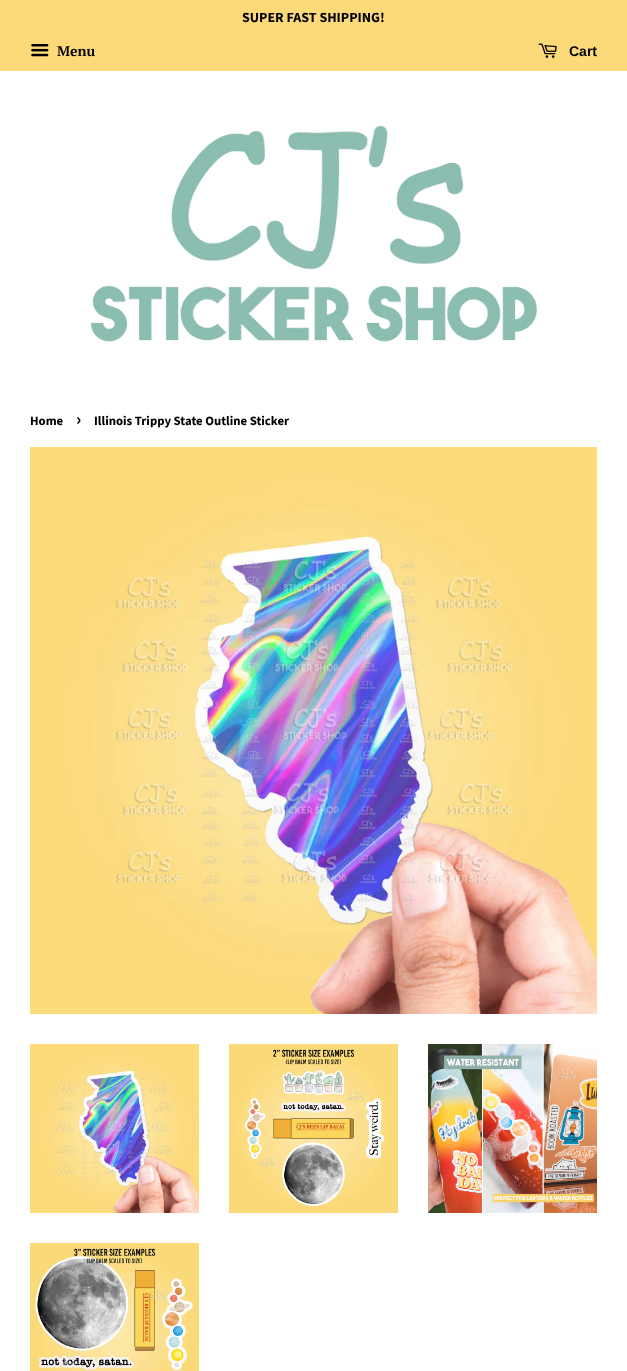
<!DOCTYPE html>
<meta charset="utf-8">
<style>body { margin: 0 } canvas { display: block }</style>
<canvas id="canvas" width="627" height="1371"></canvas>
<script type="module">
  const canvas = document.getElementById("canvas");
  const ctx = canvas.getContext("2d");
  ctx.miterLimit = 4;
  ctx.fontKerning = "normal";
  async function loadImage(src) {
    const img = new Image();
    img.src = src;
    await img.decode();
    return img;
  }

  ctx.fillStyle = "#ffffff";
  ctx.fillRect(0, 0, 627, 1371);
  ctx.fillStyle = "#fcd979";
  ctx.fillRect(0, 0, 627, 71);
  ctx.font = "bold 14px Source Sans Pro";
  ctx.fillStyle = "#000000";
  ctx.fillText("SUPER FAST SHIPPING!", 242, 22);
  ctx.drawImage(await loadImage("img1.png"), 31, 44, 18, 13);
  ctx.font = "bold 14px PT Serif";
  ctx.fillText("Menu", 57, 56);
  ctx.drawImage(await loadImage("img2.png"), 538, 43, 19, 15);
  ctx.font = "bold 14px Liberation Sans";
  ctx.fillText("Cart", 569, 56);
  ctx.drawImage(await loadImage("img3.png"), 91, 125, 446, 217);
  ctx.font = "bold 12.75px Source Sans Pro";
  ctx.fillText("Home", 30, 425);
  ctx.font = "bold 18px Source Sans Pro";
  ctx.fillText("›", 76, 425);
  ctx.font = "bold 12.75px Source Sans Pro";
  ctx.fillText("Illinois Trippy State Outline Sticker", 94, 425);
  ctx.drawImage(await loadImage("img4.png"), 30, 447, 567, 567);
  ctx.drawImage(await loadImage("img5.png"), 30, 1044, 169, 169);
  ctx.drawImage(await loadImage("img6.png"), 229, 1044, 169, 169);
  ctx.drawImage(await loadImage("img7.png"), 428, 1044, 169, 169);
  ctx.drawImage(await loadImage("img8.png"), 30, 1243, 169, 128);
</script>
